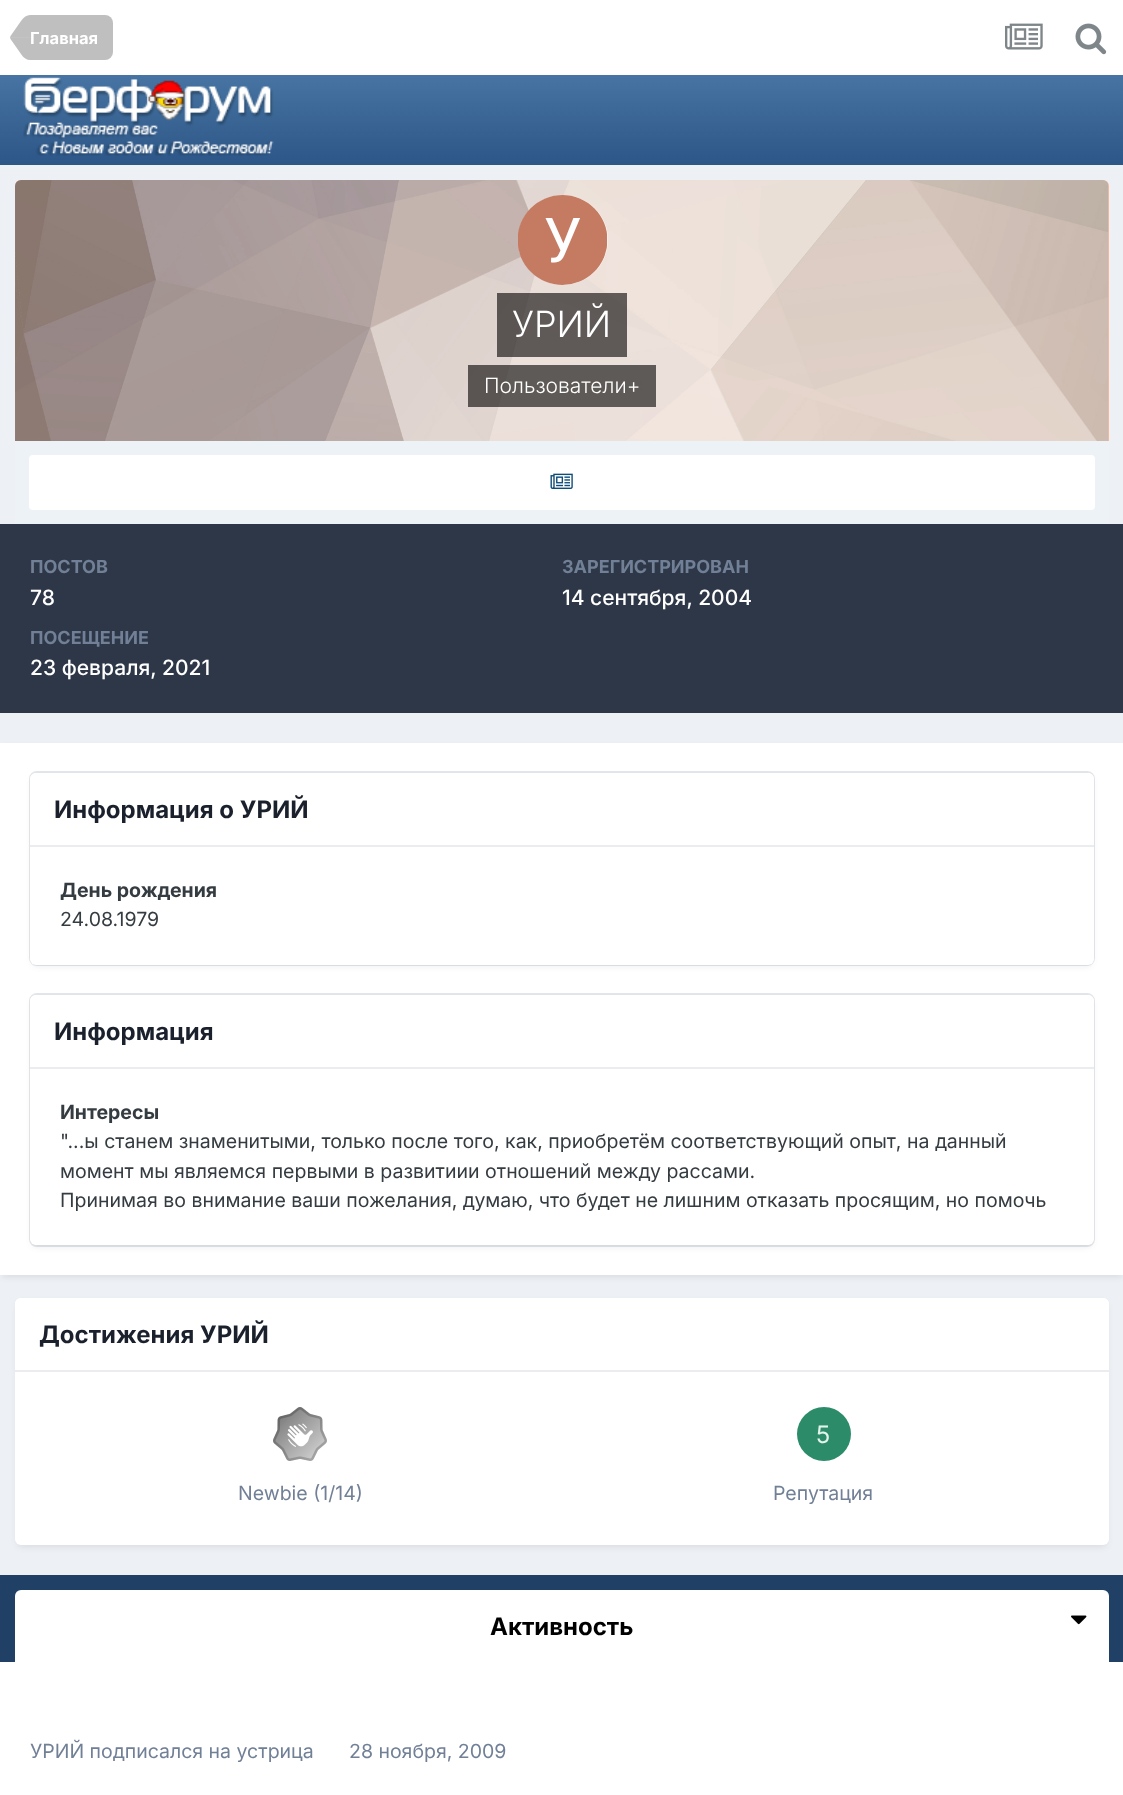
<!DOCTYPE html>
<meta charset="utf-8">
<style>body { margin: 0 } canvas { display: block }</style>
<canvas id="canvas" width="1123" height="1795"></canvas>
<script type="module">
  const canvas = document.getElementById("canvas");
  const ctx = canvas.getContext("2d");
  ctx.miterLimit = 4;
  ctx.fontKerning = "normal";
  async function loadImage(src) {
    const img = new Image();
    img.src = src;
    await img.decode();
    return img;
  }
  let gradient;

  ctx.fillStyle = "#edf0f4";
  ctx.fillRect(0, 0, 1123, 1795);
  ctx.fillStyle = "#ffffff";
  ctx.fillRect(0, 0, 1123, 75);
  ctx.fillStyle = "#bfbfbf";
  ctx.beginPath();
  ctx.roundRect(30, 15, 83, 45, [0, 8, 8, 0]);
  ctx.fill();
  ctx.beginPath();
  ctx.moveTo(10.5, 39);
  ctx.lineTo(10, 37.5);
  ctx.lineTo(30, 37.5);
  ctx.lineTo(30, 60);
  ctx.bezierCurveTo(27, 60, 23.5, 58, 21, 54);
  ctx.closePath();
  ctx.fill();
  ctx.fillStyle = "rgba(0, 0, 0, 0.25)";
  ctx.beginPath();
  ctx.moveTo(30, 15);
  ctx.lineTo(30, 37.5);
  ctx.lineTo(10, 37.5);
  ctx.lineTo(10.5, 36);
  ctx.lineTo(21, 21);
  ctx.bezierCurveTo(23.5, 17, 27, 15, 30, 15);
  ctx.closePath();
  ctx.fill();
  ctx.font = "bold 16.5px Inter";
  ctx.fillStyle = "#ffffff";
  ctx.fillText("Главная", 30, 44);
  ctx.drawImage(await loadImage("img1.png"), 1005, 23, 38, 27);
  ctx.drawImage(await loadImage("img2.png"), 1075, 23, 32, 32);
  gradient = ctx.createLinearGradient(562, 165, 562, 75);
  gradient.addColorStop(0, "#2c5687");
  gradient.addColorStop(1, "#4774a2");
  ctx.fillStyle = gradient;
  ctx.fillRect(0, 75, 1123, 90);
  ctx.drawImage(await loadImage("img3.png"), 23, 77, 251, 79);
  ctx.fillStyle = "#ffbb99";
  ctx.beginPath();
  ctx.roundRect(15, 180, 1094, 261, [6, 6, 0, 0]);
  ctx.fill();
  ctx.drawImage(await loadImage("img4.png"), 15, 180, 1094, 261);
  ctx.fillStyle = "#ffffff";
  ctx.beginPath();
  ctx.arc(563, 240, 45, 0, Math.PI * 2);
  ctx.fill();
  ctx.drawImage(await loadImage("img5.png"), 518, 195, 90, 90);
  ctx.fillStyle = "rgba(0, 0, 0, 0.6)";
  ctx.fillRect(497, 293, 130, 64);
  ctx.font = "300 36px Inter";
  ctx.fillStyle = "#ffffff";
  ctx.fillText("УРИЙ", 512, 337);
  ctx.fillStyle = "rgba(0, 0, 0, 0.6)";
  ctx.fillRect(468, 365, 188, 42);
  ctx.font = "300 21px Inter";
  ctx.fillStyle = "#ffffff";
  ctx.fillText("Пользователи+", 484, 393);
  ctx.fillStyle = "#edf2f7";
  ctx.fillRect(15, 441, 1094, 83);
  ctx.fillStyle = "#ffffff";
  ctx.beginPath();
  ctx.roundRect(27, 453, 1070, 59, 6);
  ctx.fill();
  ctx.beginPath();
  ctx.roundRect(28, 454, 1068, 57, 5);
  ctx.strokeStyle = "rgba(14, 76, 121, 0.07)";
  ctx.lineWidth = 2;
  ctx.stroke();
  ctx.drawImage(await loadImage("img6.png"), 550, 473, 23, 16);
  ctx.fillStyle = "#2d3748";
  ctx.fillRect(0, 524, 1123, 189);
  ctx.font = "bold 18px Inter";
  ctx.fillStyle = "#718096";
  ctx.fillText("ПОСТОВ", 30, 573);
  ctx.font = "500 21px Inter";
  ctx.fillStyle = "#ffffff";
  ctx.fillText("78", 30, 605);
  ctx.font = "bold 18px Inter";
  ctx.fillStyle = "#718096";
  ctx.fillText("ЗАРЕГИСТРИРОВАН", 562, 573);
  ctx.font = "500 21px Inter";
  ctx.fillStyle = "#ffffff";
  ctx.fillText("14 сентября, 2004", 562, 605);
  ctx.font = "bold 18px Inter";
  ctx.fillStyle = "#718096";
  ctx.fillText("ПОСЕЩЕНИЕ", 30, 644);
  ctx.font = "500 21px Inter";
  ctx.fillStyle = "#ffffff";
  ctx.fillText("23 февраля, 2021", 30, 675);
  ctx.fillStyle = "rgba(45, 55, 72, 0.1)";
  ctx.filter = "blur(3px)";
  ctx.beginPath();
  ctx.rect(2, 747, 1120, 530);
  ctx.fill();
  ctx.filter = "none";
  ctx.fillStyle = "#ffffff";
  ctx.fillRect(0, 743, 1123, 532);
  ctx.fillStyle = "rgba(45, 55, 72, 0.1)";
  ctx.filter = "blur(3px)";
  ctx.beginPath();
  ctx.roundRect(32, 777, 1060, 189, 5);
  ctx.fill();
  ctx.filter = "none";
  ctx.beginPath();
  ctx.roundRect(30, 772, 1064, 193, 7);
  ctx.strokeStyle = "rgba(113, 128, 150, 0.2)";
  ctx.stroke();
  ctx.fillStyle = "#ffffff";
  ctx.beginPath();
  ctx.roundRect(30, 773, 1064, 192, 6);
  ctx.fill();
  ctx.beginPath();
  ctx.roundRect(30, 773, 1064, 73, [6, 6, 0, 0]);
  ctx.fill();
  ctx.fillStyle = "#eaecef";
  ctx.fillRect(30, 845, 1064, 2);
  ctx.font = "bold 24px Inter";
  ctx.fillStyle = "#1a202c";
  ctx.fillText("Информация о УРИЙ", 54, 818);
  ctx.font = "bold 19.5px Inter";
  ctx.fillStyle = "#353c41";
  ctx.fillText("День рождения", 60, 897);
  ctx.font = "19.5px Inter";
  ctx.fillText("24.08.1979", 60, 926);
  ctx.fillStyle = "rgba(45, 55, 72, 0.1)";
  ctx.filter = "blur(3px)";
  ctx.beginPath();
  ctx.roundRect(32, 999, 1060, 248, 5);
  ctx.fill();
  ctx.filter = "none";
  ctx.beginPath();
  ctx.roundRect(30, 994, 1064, 252, 7);
  ctx.stroke();
  ctx.fillStyle = "#ffffff";
  ctx.beginPath();
  ctx.roundRect(30, 995, 1064, 250, 6);
  ctx.fill();
  ctx.beginPath();
  ctx.roundRect(30, 995, 1064, 73, [6, 6, 0, 0]);
  ctx.fill();
  ctx.fillStyle = "#eaecef";
  ctx.fillRect(30, 1067, 1064, 2);
  ctx.font = "bold 24px Inter";
  ctx.fillStyle = "#1a202c";
  ctx.fillText("Информация", 54, 1040);
  ctx.font = "bold 19.5px Inter";
  ctx.fillStyle = "#353c41";
  ctx.fillText("Интересы", 60, 1119);
  ctx.font = "19.5px Inter";
  ctx.fillText("\"...ы станем знаменитыми, только после того, как, приобретём соответствующий опыт, на данный", 60, 1148);
  ctx.fillText("момент мы являемся первыми в развитиии отношений между рассами.", 60, 1178);
  ctx.fillText("Принимая во внимание ваши пожелания, думаю, что будет не лишним отказать просящим, но помочь", 60, 1207);
  ctx.fillStyle = "rgba(45, 55, 72, 0.1)";
  ctx.filter = "blur(3px)";
  ctx.beginPath();
  ctx.roundRect(17, 1302, 1090, 245, 5);
  ctx.fill();
  ctx.filter = "none";
  ctx.fillStyle = "#ffffff";
  ctx.beginPath();
  ctx.roundRect(15, 1298, 1094, 247, 6);
  ctx.fill();
  ctx.beginPath();
  ctx.roundRect(15, 1298, 1094, 73, [6, 6, 0, 0]);
  ctx.fill();
  ctx.fillStyle = "#eaecef";
  ctx.fillRect(15, 1370, 1094, 2);
  ctx.font = "bold 24px Inter";
  ctx.fillStyle = "#1a202c";
  ctx.fillText("Достижения УРИЙ", 39, 1343);
  ctx.drawImage(await loadImage("img7.png"), 273, 1407, 54, 54);
  ctx.font = "19.5px Inter";
  ctx.fillStyle = "#718096";
  ctx.fillText("Newbie (1/14)", 238, 1500);
  ctx.fillStyle = "#2c8c69";
  ctx.beginPath();
  ctx.arc(824, 1434, 27, 0, Math.PI * 2);
  ctx.fill();
  ctx.font = "24px Inter";
  ctx.fillStyle = "#e3f3ec";
  ctx.fillText("5", 816, 1443);
  ctx.font = "19.5px Inter";
  ctx.fillStyle = "#718096";
  ctx.fillText("Репутация", 773, 1500);
  ctx.fillStyle = "#ffffff";
  ctx.fillRect(0, 1662, 1123, 133);
  ctx.fillStyle = "#204066";
  ctx.fillRect(0, 1575, 1123, 87);
  ctx.fillStyle = "#ffffff";
  ctx.beginPath();
  ctx.roundRect(15, 1590, 1094, 72, [6, 6, 0, 0]);
  ctx.fill();
  ctx.font = "bold 24px Inter";
  ctx.fillStyle = "#000000";
  ctx.fillText("Активность", 490, 1635);
  ctx.drawImage(await loadImage("img8.png"), 1071, 1615, 16, 10);
  ctx.font = "19.5px Inter";
  ctx.fillStyle = "#718096";
  ctx.fillText("УРИЙ подписался на устрица", 30, 1758);
  ctx.fillText("28 ноября, 2009", 349, 1758);
</script>
